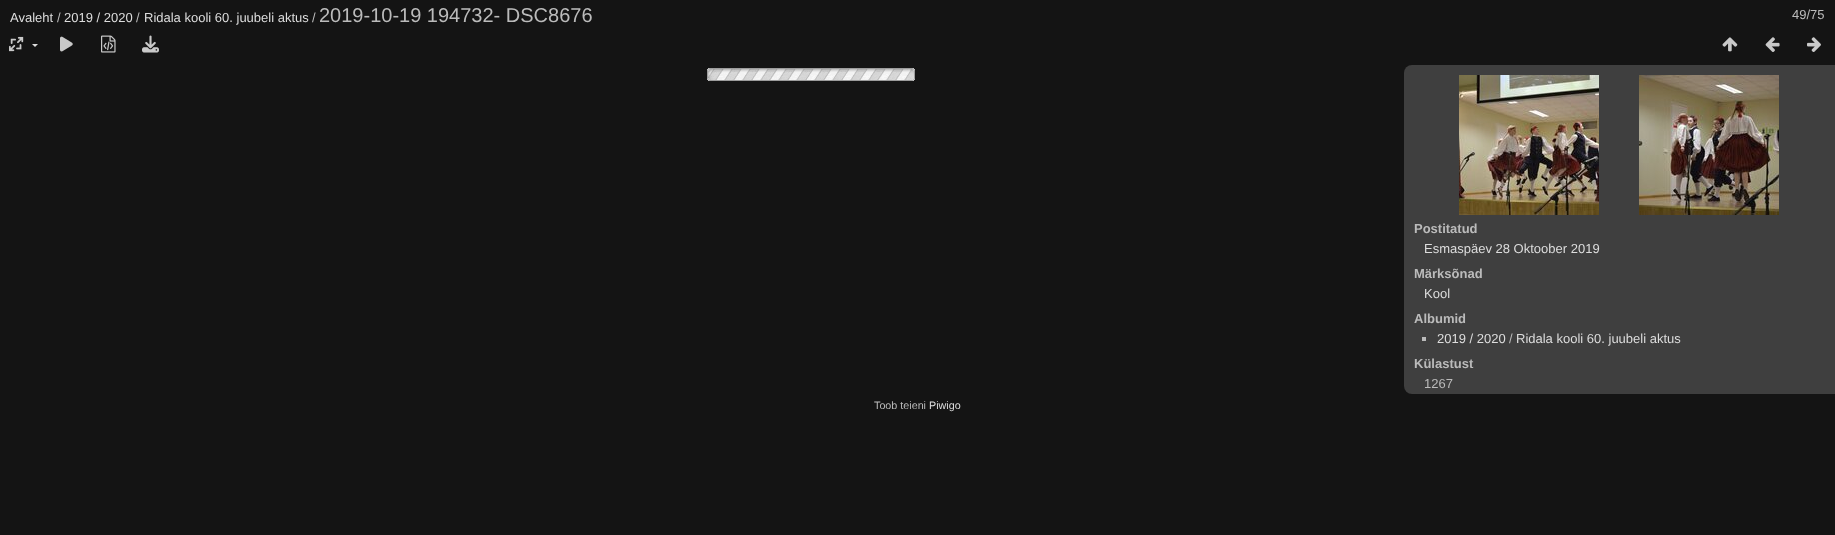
<!DOCTYPE html>
<meta charset="utf-8">
<style>body { margin: 0 } canvas { display: block }</style>
<canvas id="canvas" width="1835" height="535"></canvas>
<script type="module">
  const canvas = document.getElementById("canvas");
  const ctx = canvas.getContext("2d");
  ctx.miterLimit = 4;
  ctx.fontKerning = "normal";
  async function loadImage(src) {
    const img = new Image();
    img.src = src;
    await img.decode();
    return img;
  }

  ctx.fillStyle = "#141414";
  ctx.fillRect(0, 0, 1835, 535);
  ctx.font = "13px Liberation Sans";
  ctx.fillStyle = "#dddddd";
  ctx.fillText("Avaleht", 10, 22);
  ctx.fillStyle = "#bbbbbb";
  ctx.fillText("/", 57, 22);
  ctx.fillStyle = "#dddddd";
  ctx.fillText("2019 / 2020", 64, 22);
  ctx.fillStyle = "#bbbbbb";
  ctx.fillText("/", 136, 22);
  ctx.fillStyle = "#dddddd";
  ctx.fillText("Ridala kooli 60. juubeli aktus", 144, 22);
  ctx.fillStyle = "#bbbbbb";
  ctx.fillText("/", 312, 22);
  ctx.font = "20px Liberation Sans";
  ctx.fillText("2019-10-19 194732- DSC8676", 319, 22);
  ctx.font = "13px Liberation Sans";
  ctx.fillText("49/75", 1792, 19);
  ctx.drawImage(await loadImage("img1.png"), 9, 36, 15, 16);
  ctx.fillStyle = "#dddddd";
  ctx.beginPath();
  ctx.moveTo(32, 44);
  ctx.lineTo(38, 44);
  ctx.lineTo(35, 47);
  ctx.closePath();
  ctx.fill();
  ctx.drawImage(await loadImage("img2.png"), 60, 36, 13, 16);
  ctx.drawImage(await loadImage("img3.png"), 101, 35, 15, 18);
  ctx.drawImage(await loadImage("img4.png"), 142, 35, 17, 18);
  ctx.drawImage(await loadImage("img5.png"), 1722, 37, 16, 15);
  ctx.drawImage(await loadImage("img6.png"), 1765, 37, 15, 15);
  ctx.drawImage(await loadImage("img7.png"), 1807, 37, 14, 15);
  ctx.drawImage(await loadImage("img8.png"), 707, 68, 208, 13);
  ctx.fillStyle = "#3f3f3f";
  ctx.beginPath();
  ctx.roundRect(1404, 65, 431, 329, [8, 0, 0, 8]);
  ctx.fill();
  ctx.drawImage(await loadImage("img9.png"), 1459, 75, 140, 140);
  ctx.drawImage(await loadImage("img10.png"), 1639, 75, 140, 140);
  ctx.font = "bold 13px Liberation Sans";
  ctx.fillStyle = "#bbbbbb";
  ctx.fillText("Postitatud", 1414, 233);
  ctx.font = "13px Liberation Sans";
  ctx.fillStyle = "#dddddd";
  ctx.fillText("Esmaspäev 28 Oktoober 2019", 1424, 253);
  ctx.font = "bold 13px Liberation Sans";
  ctx.fillStyle = "#bbbbbb";
  ctx.fillText("Märksõnad", 1414, 278);
  ctx.font = "13px Liberation Sans";
  ctx.fillStyle = "#dddddd";
  ctx.fillText("Kool", 1424, 298);
  ctx.font = "bold 13px Liberation Sans";
  ctx.fillStyle = "#bbbbbb";
  ctx.fillText("Albumid", 1414, 323);
  ctx.fillRect(1422, 337, 4, 4);
  ctx.font = "13px Liberation Sans";
  ctx.fillStyle = "#dddddd";
  ctx.fillText("2019 / 2020", 1437, 343);
  ctx.fillStyle = "#bbbbbb";
  ctx.fillText("/", 1509, 343);
  ctx.fillStyle = "#dddddd";
  ctx.fillText("Ridala kooli 60. juubeli aktus", 1516, 343);
  ctx.font = "bold 13px Liberation Sans";
  ctx.fillStyle = "#bbbbbb";
  ctx.fillText("Külastust", 1414, 368);
  ctx.font = "13px Liberation Sans";
  ctx.fillText("1267", 1424, 388);
  ctx.font = "10.75px Liberation Sans";
  ctx.fillText("Toob teieni", 874, 409);
  ctx.fillStyle = "#dddddd";
  ctx.fillText("Piwigo", 929, 409);
</script>
